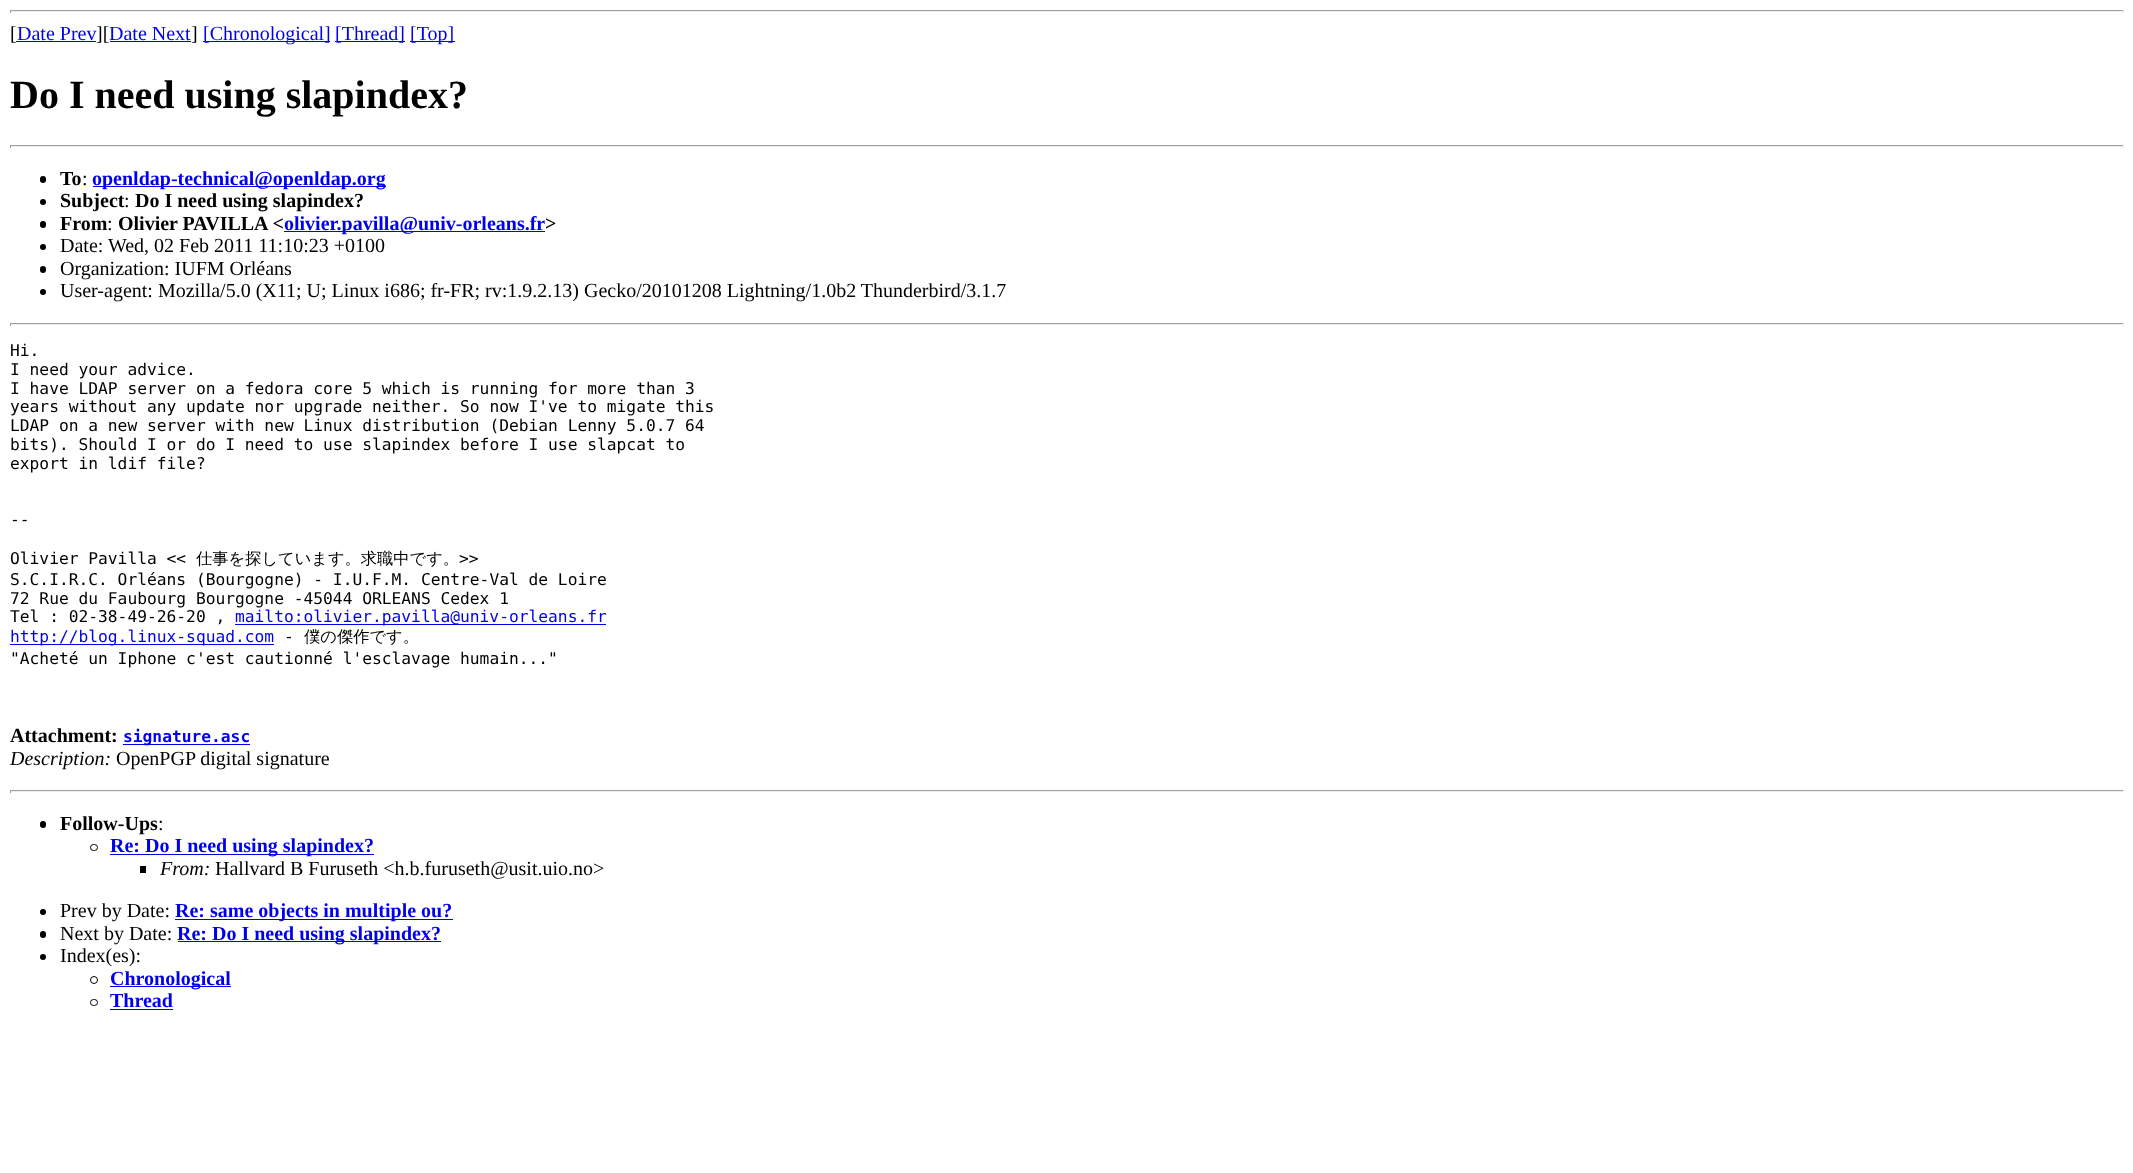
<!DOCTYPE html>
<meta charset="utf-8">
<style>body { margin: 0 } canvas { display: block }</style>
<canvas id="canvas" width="2133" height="1173"></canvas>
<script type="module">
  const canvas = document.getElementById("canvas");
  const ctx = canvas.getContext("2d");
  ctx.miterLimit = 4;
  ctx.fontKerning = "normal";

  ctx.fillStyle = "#ffffff";
  ctx.fillRect(0, 0, 2133, 1173);
  ctx.fillStyle = "#9f9f9f";
  ctx.fillRect(10, 10, 2114, 1);
  ctx.fillStyle = "#eeeeee";
  ctx.fillRect(2123, 10, 1, 3);
  ctx.fillRect(10, 11, 2114, 1);
  ctx.fillStyle = "#9f9f9f";
  ctx.fillRect(10, 10, 1, 3);
  ctx.font = "20px Liberation Serif";
  ctx.fillStyle = "#000000";
  ctx.fillText("[", 10, 40);
  ctx.fillStyle = "#0000ee";
  ctx.fillText("Date Prev", 17, 40);
  ctx.fillRect(16, 41, 80, 1);
  ctx.fillStyle = "#000000";
  ctx.fillText("][", 96, 40);
  ctx.fillStyle = "#0000ee";
  ctx.fillText("Date Next", 109, 40);
  ctx.fillRect(110, 41, 81, 1);
  ctx.fillStyle = "#000000";
  ctx.fillText("]", 191, 40);
  ctx.fillStyle = "#0000ee";
  ctx.fillRect(203, 41, 127, 1);
  ctx.fillText("[Chronological]", 203, 40);
  ctx.fillRect(335, 41, 70, 1);
  ctx.fillText("[Thread]", 335, 40);
  ctx.fillRect(410, 41, 45, 1);
  ctx.fillText("[Top]", 410, 40);
  ctx.font = "bold 40px Liberation Serif";
  ctx.fillStyle = "#000000";
  ctx.fillText("Do I need using slapindex?", 10, 108);
  ctx.fillStyle = "#9f9f9f";
  ctx.fillRect(10, 145, 2114, 1);
  ctx.fillStyle = "#eeeeee";
  ctx.fillRect(2123, 145, 1, 3);
  ctx.fillRect(10, 146, 2114, 1);
  ctx.fillStyle = "#9f9f9f";
  ctx.fillRect(10, 145, 1, 3);
  ctx.fillStyle = "#000000";
  ctx.beginPath();
  ctx.roundRect(40, 176, 6, 7, 3);
  ctx.fill();
  ctx.font = "bold 20px Liberation Serif";
  ctx.fillText("To", 60, 185);
  ctx.font = "20px Liberation Serif";
  ctx.fillText(":", 82, 185);
  ctx.fillStyle = "#0000ee";
  ctx.fillRect(93, 186, 293, 1);
  ctx.font = "bold 20px Liberation Serif";
  ctx.fillText("openldap-technical@openldap.org", 92, 185);
  ctx.fillStyle = "#000000";
  ctx.beginPath();
  ctx.arc(43, 202, 3, 0, Math.PI * 2);
  ctx.fill();
  ctx.fillText("Subject", 60, 207);
  ctx.font = "20px Liberation Serif";
  ctx.fillText(":", 124, 207);
  ctx.font = "bold 20px Liberation Serif";
  ctx.fillText("Do I need using slapindex?", 135, 207);
  ctx.beginPath();
  ctx.roundRect(40, 221, 6, 7, 3);
  ctx.fill();
  ctx.fillText("From", 60, 230);
  ctx.font = "20px Liberation Serif";
  ctx.fillText(":", 107, 230);
  ctx.font = "bold 20px Liberation Serif";
  ctx.fillText("Olivier PAVILLA <", 118, 230);
  ctx.fillStyle = "#0000ee";
  ctx.fillRect(284, 231, 261, 1);
  ctx.fillText("olivier.pavilla@univ-orleans.fr", 284, 230);
  ctx.fillStyle = "#000000";
  ctx.fillText(">", 545, 230);
  ctx.beginPath();
  ctx.arc(43, 247, 3, 0, Math.PI * 2);
  ctx.fill();
  ctx.font = "20px Liberation Serif";
  ctx.fillText("Date: Wed, 02 Feb 2011 11:10:23 +0100", 60, 252);
  ctx.beginPath();
  ctx.roundRect(40, 266, 6, 7, 3);
  ctx.fill();
  ctx.fillText("Organization: IUFM Orléans", 60, 275);
  ctx.beginPath();
  ctx.arc(43, 292, 3, 0, Math.PI * 2);
  ctx.fill();
  ctx.fillText("User-agent: Mozilla/5.0 (X11; U; Linux i686; fr-FR; rv:1.9.2.13) Gecko/20101208 Lightning/1.0b2 Thunderbird/3.1.7", 60, 297);
  ctx.fillStyle = "#9f9f9f";
  ctx.fillRect(10, 323, 2114, 1);
  ctx.fillStyle = "#eeeeee";
  ctx.fillRect(2123, 323, 1, 3);
  ctx.fillRect(10, 324, 2114, 1);
  ctx.fillStyle = "#9f9f9f";
  ctx.fillRect(10, 323, 1, 3);
  ctx.font = "16.25px DejaVu Sans Mono";
  ctx.fillStyle = "#000000";
  ctx.fillText("Hi.", 10, 356);
  ctx.fillText("I need your advice.", 10, 375);
  ctx.fillText("I have LDAP server on a fedora core 5 which is running for more than 3", 10, 394);
  ctx.fillText("years without any update nor upgrade neither. So now I've to migate this", 10, 412);
  ctx.fillText("LDAP on a new server with new Linux distribution (Debian Lenny 5.0.7 64", 10, 431);
  ctx.fillText("bits). Should I or do I need to use slapindex before I use slapcat to", 10, 450);
  ctx.fillText("export in ldif file?", 10, 469);
  ctx.fillText("--", 10, 525);
  ctx.fillText("Olivier Pavilla <<", 10, 564);
  ctx.font = "500 16.25px WenQuanYi Zen Hei";
  ctx.fillText("仕事を探しています。求職中です。", 196, 564);
  ctx.font = "16.25px DejaVu Sans Mono";
  ctx.fillText(">>", 459, 564);
  ctx.fillText("S.C.I.R.C. Orléans (Bourgogne) - I.U.F.M. Centre-Val de Loire", 10, 585);
  ctx.fillText("72 Rue du Faubourg Bourgogne -45044 ORLEANS Cedex 1", 10, 604);
  ctx.fillText("Tel : 02-38-49-26-20 ,", 10, 622);
  ctx.fillStyle = "#0000ee";
  ctx.fillRect(235, 624, 371, 1);
  ctx.fillText("mailto:olivier.pavilla@univ-orleans.fr", 235, 622);
  ctx.fillRect(10, 644, 264, 1);
  ctx.fillText("http://blog.linux-squad.com", 10, 642);
  ctx.fillStyle = "#000000";
  ctx.fillText("-", 284, 642);
  ctx.font = "500 16.25px WenQuanYi Zen Hei";
  ctx.fillText("僕の傑作です。", 304, 642);
  ctx.font = "16.25px DejaVu Sans Mono";
  ctx.fillText("\"Acheté un Iphone c'est cautionné l'esclavage humain...\"", 10, 664);
  ctx.font = "bold 20px Liberation Serif";
  ctx.fillText("Attachment:", 10, 742);
  ctx.fillStyle = "#0000ee";
  ctx.fillRect(123, 744, 127, 1);
  ctx.font = "bold 16.25px DejaVu Sans Mono";
  ctx.fillText("signature.asc", 123, 742);
  ctx.font = "italic 20px Liberation Serif";
  ctx.fillStyle = "#000000";
  ctx.fillText("Description:", 10, 765);
  ctx.font = "20px Liberation Serif";
  ctx.fillText("OpenPGP digital signature", 116, 765);
  ctx.fillStyle = "#9f9f9f";
  ctx.fillRect(10, 790, 2114, 1);
  ctx.fillStyle = "#eeeeee";
  ctx.fillRect(2123, 790, 1, 3);
  ctx.fillRect(10, 791, 2114, 1);
  ctx.fillStyle = "#9f9f9f";
  ctx.fillRect(10, 790, 1, 3);
  ctx.fillStyle = "#000000";
  ctx.beginPath();
  ctx.roundRect(40, 821, 6, 7, 3);
  ctx.fill();
  ctx.font = "bold 20px Liberation Serif";
  ctx.fillText("Follow-Ups", 60, 830);
  ctx.font = "20px Liberation Serif";
  ctx.fillText(":", 158, 830);
  ctx.beginPath();
  ctx.roundRect(90.5, 844.5, 7, 6, 3);
  ctx.strokeStyle = "#000000";
  ctx.stroke();
  ctx.fillStyle = "#0000ee";
  ctx.fillRect(110, 854, 264, 1);
  ctx.font = "bold 20px Liberation Serif";
  ctx.fillText("Re: Do I need using slapindex?", 110, 852);
  ctx.fillStyle = "#000000";
  ctx.fillRect(140, 866, 6, 7);
  ctx.font = "italic 20px Liberation Serif";
  ctx.fillText("From:", 160, 875);
  ctx.font = "20px Liberation Serif";
  ctx.fillText("Hallvard B Furuseth <h.b.furuseth@usit.uio.no>", 215, 875);
  ctx.beginPath();
  ctx.arc(43, 912, 3, 0, Math.PI * 2);
  ctx.fill();
  ctx.fillText("Prev by Date:", 60, 917);
  ctx.fillStyle = "#0000ee";
  ctx.fillRect(175, 919, 278, 1);
  ctx.font = "bold 20px Liberation Serif";
  ctx.fillText("Re: same objects in multiple ou?", 175, 917);
  ctx.fillStyle = "#000000";
  ctx.beginPath();
  ctx.roundRect(40, 931, 6, 7, 3);
  ctx.fill();
  ctx.font = "20px Liberation Serif";
  ctx.fillText("Next by Date:", 60, 940);
  ctx.fillStyle = "#0000ee";
  ctx.fillRect(178, 941, 263, 1);
  ctx.font = "bold 20px Liberation Serif";
  ctx.fillText("Re: Do I need using slapindex?", 177, 940);
  ctx.fillStyle = "#000000";
  ctx.beginPath();
  ctx.arc(43, 957, 3, 0, Math.PI * 2);
  ctx.fill();
  ctx.font = "20px Liberation Serif";
  ctx.fillText("Index(es):", 60, 962);
  ctx.beginPath();
  ctx.arc(94, 980, 3.5, 0, Math.PI * 2);
  ctx.stroke();
  ctx.fillStyle = "#0000ee";
  ctx.fillRect(110, 986, 121, 1);
  ctx.font = "bold 20px Liberation Serif";
  ctx.fillText("Chronological", 110, 985);
  ctx.beginPath();
  ctx.roundRect(90.5, 999.5, 7, 6, 3);
  ctx.stroke();
  ctx.fillText("Thread", 110, 1007);
  ctx.fillRect(110, 1009, 63, 1);
</script>
